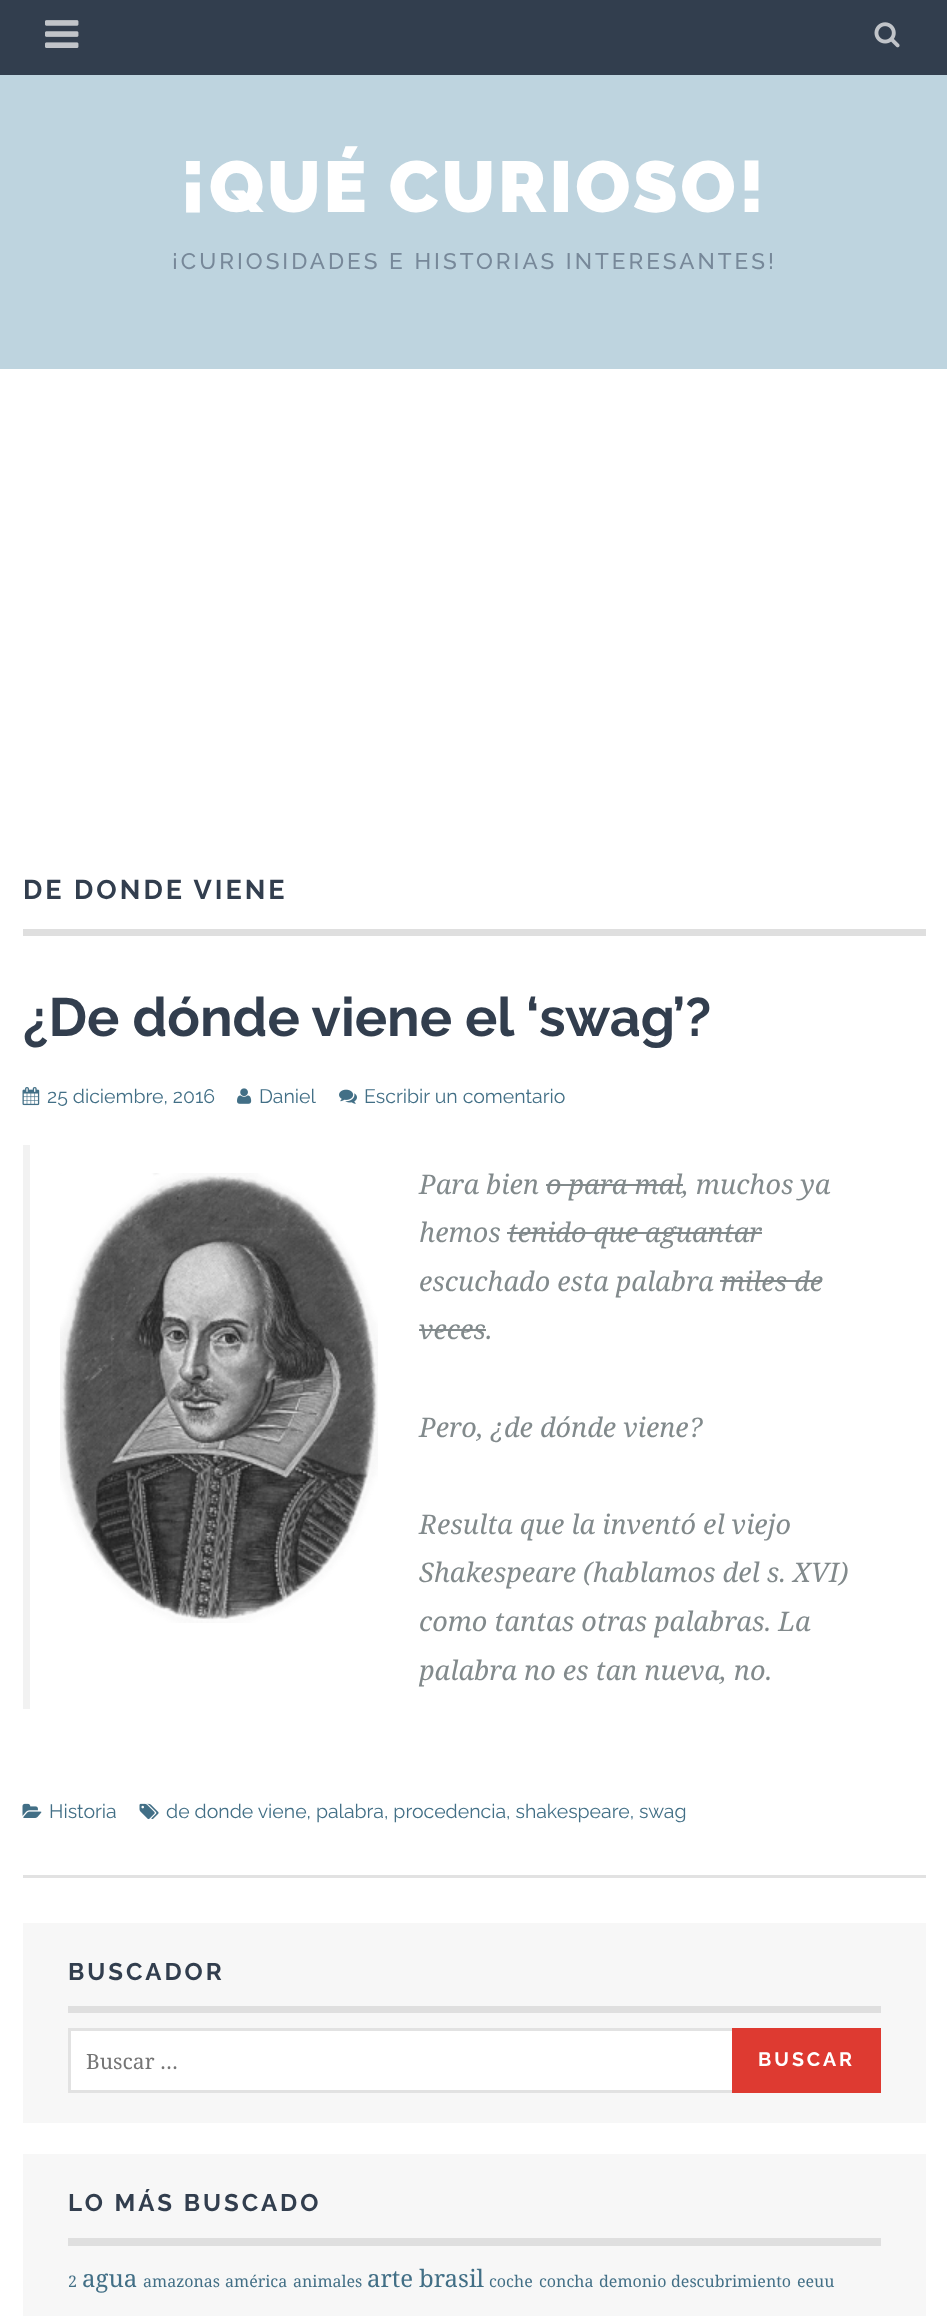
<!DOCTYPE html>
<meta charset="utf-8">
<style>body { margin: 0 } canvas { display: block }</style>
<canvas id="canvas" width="947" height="2316"></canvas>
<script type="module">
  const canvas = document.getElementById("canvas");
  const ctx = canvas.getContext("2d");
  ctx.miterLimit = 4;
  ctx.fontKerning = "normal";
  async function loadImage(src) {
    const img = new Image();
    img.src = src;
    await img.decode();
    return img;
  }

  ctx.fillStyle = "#ffffff";
  ctx.fillRect(0, 0, 947, 2316);
  ctx.fillStyle = "#323e4e";
  ctx.fillRect(0, 0, 947, 75);
  ctx.drawImage(await loadImage("img1.png"), 45, 20, 34, 28);
  ctx.drawImage(await loadImage("img2.png"), 874, 22, 26, 26);
  ctx.fillStyle = "#bed4df";
  ctx.fillRect(0, 75, 947, 294);
  ctx.letterSpacing = "3px";
  ctx.font = "900 72px Raleway";
  ctx.fillStyle = "#ffffff";
  ctx.fillText("¡QUÉ CURIOSO!", 180, 212);
  ctx.font = "500 22.5px Raleway";
  ctx.fillStyle = "#778899";
  ctx.fillText("¡CURIOSIDADES E HISTORIAS INTERESANTES!", 172, 269);
  ctx.fillStyle = "#dfdfdf";
  ctx.fillRect(23, 929, 903, 7);
  ctx.font = "bold 27px Raleway";
  ctx.fillStyle = "#323e4e";
  ctx.fillText("DE DONDE VIENE", 23, 899);
  ctx.fillStyle = "#e2e2e2";
  ctx.fillRect(23, 1875, 903, 3);
  ctx.letterSpacing = "0px";
  ctx.font = "bold 54px Raleway";
  ctx.fillStyle = "#323e4e";
  ctx.fillText("¿De dónde viene el ‘swag’?", 23, 1036);
  ctx.drawImage(await loadImage("img3.png"), 22, 1087, 18, 19);
  ctx.font = "19.5px Raleway";
  ctx.fillStyle = "#426f86";
  ctx.fillText("25 diciembre, 2016", 47, 1103);
  ctx.drawImage(await loadImage("img4.png"), 237, 1088, 15, 16);
  ctx.fillText("Daniel", 259, 1103);
  ctx.drawImage(await loadImage("img5.png"), 339, 1089, 18, 15);
  ctx.fillText("Escribir un comentario", 364, 1103);
  ctx.fillStyle = "#f2f2f2";
  ctx.fillRect(23, 1145, 7, 564);
  ctx.drawImage(await loadImage("img6.png"), 60, 1173, 318, 450);
  ctx.font = "italic 27px Noto Serif";
  ctx.fillStyle = "#828a8c";
  ctx.fillText("Para bien o para mal", 419, 1194);
  ctx.fillRect(546, 1184, 137, 2);
  ctx.fillText(", muchos ya", 682, 1194);
  ctx.fillText("hemos tenido que aguantar", 419, 1242);
  ctx.fillRect(507, 1232, 255, 2);
  ctx.fillText("escuchado esta palabra miles de", 419, 1291);
  ctx.fillText("veces.", 419, 1339);
  ctx.fillRect(720, 1280, 102, 2);
  ctx.fillRect(419, 1329, 67, 2);
  ctx.fillText("Pero, ¿de dónde viene?", 419, 1437);
  ctx.fillText("Resulta que la inventó el viejo", 419, 1534);
  ctx.fillText("Shakespeare (hablamos del s. XVI)", 419, 1582);
  ctx.fillText("como tantas otras palabras. La", 419, 1631);
  ctx.fillText("palabra no es tan nueva, no.", 419, 1680);
  ctx.drawImage(await loadImage("img7.png"), 22, 1803, 20, 15);
  ctx.font = "19.5px Raleway";
  ctx.fillStyle = "#426f86";
  ctx.fillText("Historia", 49, 1818);
  ctx.drawImage(await loadImage("img8.png"), 139, 1803, 20, 17);
  ctx.fillText("de donde viene, palabra, procedencia, shakespeare, swag", 166, 1818);
  ctx.fillStyle = "#f7f7f7";
  ctx.fillRect(23, 1923, 903, 200);
  ctx.fillStyle = "#dfdfdf";
  ctx.fillRect(68, 2006, 813, 7);
  ctx.letterSpacing = "3px";
  ctx.font = "bold 24px Raleway";
  ctx.fillStyle = "#323e4e";
  ctx.fillText("BUSCADOR", 68, 1980);
  ctx.fillStyle = "#ffffff";
  ctx.beginPath();
  ctx.rect(69.5, 2029.5, 664, 62);
  ctx.fill();
  ctx.strokeStyle = "#e2e2e2";
  ctx.lineWidth = 3;
  ctx.stroke();
  ctx.letterSpacing = "0px";
  ctx.font = "21px Noto Serif";
  ctx.fillStyle = "#757575";
  ctx.fillText("Buscar …", 86, 2069);
  ctx.fillStyle = "#de3a31";
  ctx.fillRect(732, 2028, 149, 65);
  ctx.letterSpacing = "3px";
  ctx.font = "bold 19.5px Raleway";
  ctx.fillStyle = "#ffffff";
  ctx.fillText("BUSCAR", 758, 2066);
  ctx.fillStyle = "#f7f7f7";
  ctx.fillRect(23, 2154, 903, 162);
  ctx.fillStyle = "#dfdfdf";
  ctx.fillRect(68, 2238, 813, 8);
  ctx.font = "bold 24px Raleway";
  ctx.fillStyle = "#323e4e";
  ctx.fillText("LO MÁS BUSCADO", 68, 2211);
  ctx.letterSpacing = "0px";
  ctx.font = "16px Noto Serif";
  ctx.fillStyle = "#426f86";
  ctx.fillText("2", 68, 2287);
  ctx.font = "24px Noto Serif";
  ctx.fillText("agua", 82, 2287);
  ctx.font = "16px Noto Serif";
  ctx.fillText("amazonas", 143, 2287);
  ctx.fillText("américa", 225, 2287);
  ctx.fillText("animales", 293, 2287);
  ctx.font = "24px Noto Serif";
  ctx.fillText("arte", 367, 2287);
  ctx.fillText("brasil", 419, 2287);
  ctx.font = "16px Noto Serif";
  ctx.fillText("coche", 489, 2287);
  ctx.fillText("concha", 539, 2287);
  ctx.fillText("demonio", 599, 2287);
  ctx.fillText("descubrimiento", 671, 2287);
  ctx.fillText("eeuu", 797, 2287);
</script>
